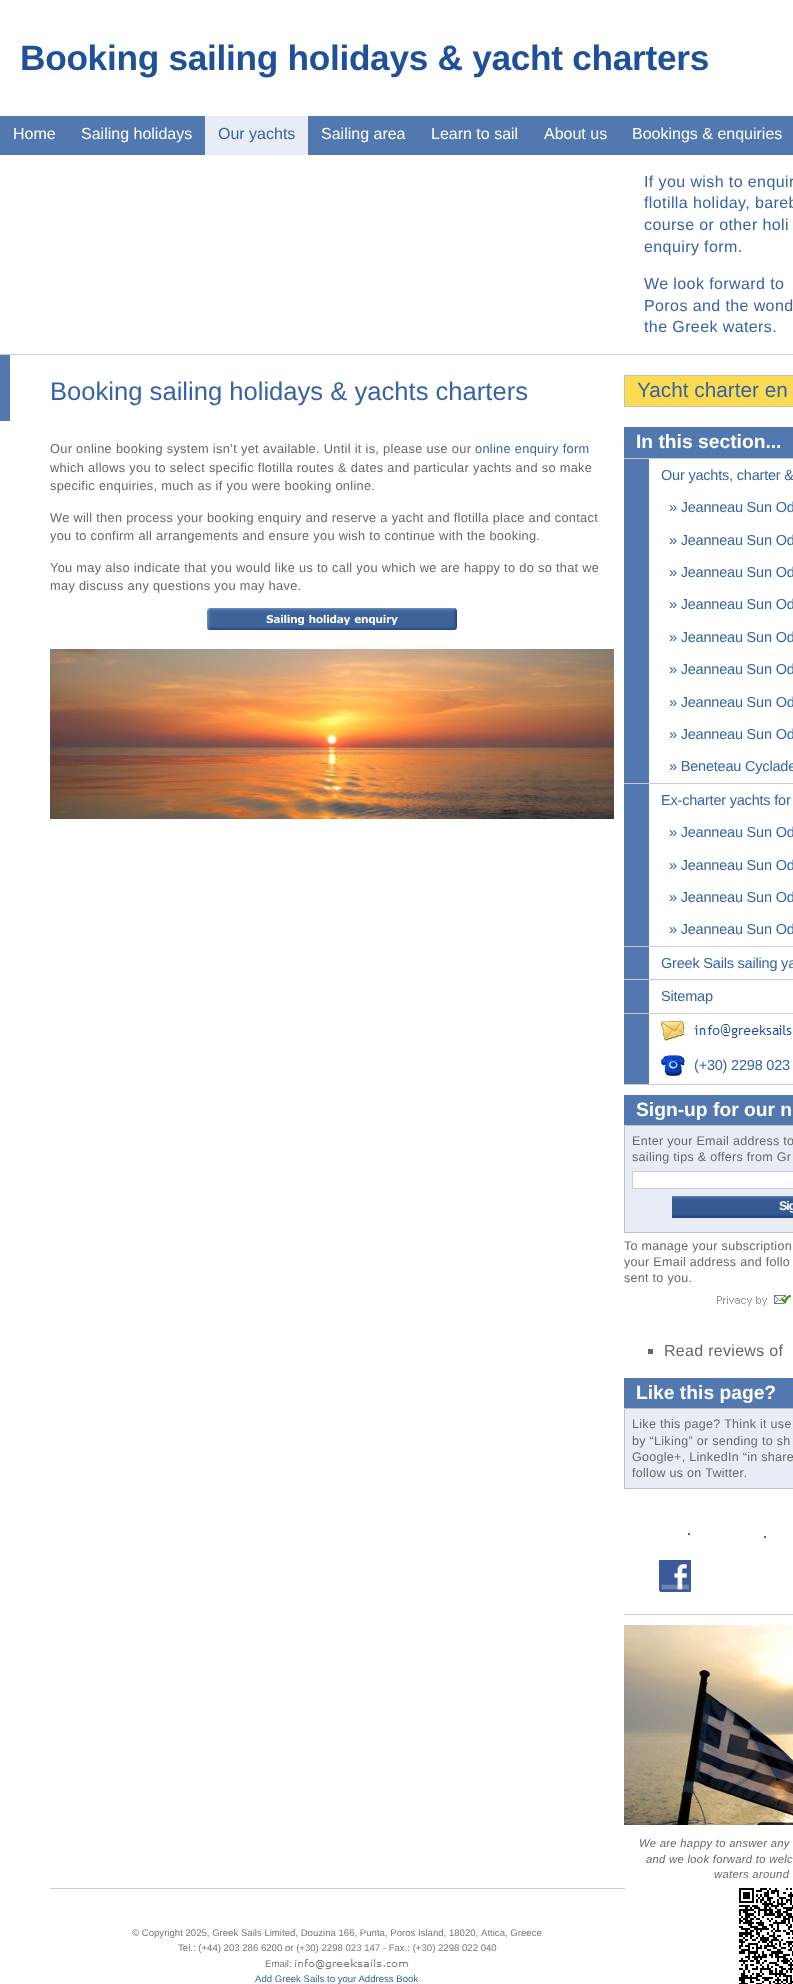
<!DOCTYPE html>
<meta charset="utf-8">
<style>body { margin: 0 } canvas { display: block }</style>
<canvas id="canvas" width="793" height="1984"></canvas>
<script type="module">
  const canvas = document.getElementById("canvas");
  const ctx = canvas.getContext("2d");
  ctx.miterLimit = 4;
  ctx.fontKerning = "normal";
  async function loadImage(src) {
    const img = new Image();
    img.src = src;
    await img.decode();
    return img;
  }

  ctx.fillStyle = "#ffffff";
  ctx.fillRect(0, 0, 793, 1984);
  ctx.letterSpacing = "-0.3px";
  ctx.font = "bold 35.25px Liberation Sans";
  ctx.fillStyle = "#1f5098";
  ctx.fillText("Booking sailing holidays & yacht charters", 20, 70);
  ctx.fillStyle = "#5178af";
  ctx.fillRect(0, 116, 793, 39);
  ctx.letterSpacing = "0px";
  ctx.font = "16px Liberation Sans";
  ctx.fillStyle = "#ffffff";
  ctx.fillText("Home", 13, 139);
  ctx.fillText("Sailing holidays", 81, 139);
  ctx.fillStyle = "#e8edf5";
  ctx.fillRect(205, 116, 103, 39);
  ctx.fillStyle = "#3763a3";
  ctx.fillText("Our yachts", 218, 139);
  ctx.fillStyle = "#ffffff";
  ctx.fillText("Sailing area", 321, 139);
  ctx.fillText("Learn to sail", 431, 139);
  ctx.fillText("About us", 544, 139);
  ctx.fillText("Bookings & enquiries", 632, 139);
  ctx.letterSpacing = "0.4px";
  ctx.fillStyle = "#3763a3";
  ctx.fillText("If you wish to enquir", 644, 187);
  ctx.fillText("flotilla holiday, bareb", 644, 208);
  ctx.fillText("course or other holi", 644, 230);
  ctx.fillText("enquiry form.", 644, 252);
  ctx.fillText("We look forward to", 644, 289);
  ctx.fillText("Poros and the wond", 644, 311);
  ctx.fillText("the Greek waters.", 644, 332);
  ctx.fillStyle = "#cccccc";
  ctx.fillRect(0, 354, 793, 1);
  ctx.fillStyle = "#5178af";
  ctx.fillRect(0, 355, 10, 66);
  ctx.letterSpacing = "0px";
  ctx.font = "25.6px Liberation Sans";
  ctx.fillStyle = "#3763a3";
  ctx.fillText("Booking sailing holidays & yachts charters", 50, 400);
  ctx.fillStyle = "#fcda52";
  ctx.beginPath();
  ctx.rect(624.5, 375.5, 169, 31);
  ctx.fill();
  ctx.strokeStyle = "#c0c0c0";
  ctx.stroke();
  ctx.font = "20.75px Liberation Sans";
  ctx.fillStyle = "#3763a3";
  ctx.fillText("Yacht charter en", 637, 397);
  ctx.letterSpacing = "0.3px";
  ctx.font = "12.8px Liberation Sans";
  ctx.fillStyle = "#666666";
  ctx.fillText("Our online booking system isn’t yet available. Until it is, please use our", 50, 453);
  ctx.fillStyle = "#3763a3";
  ctx.fillText("online enquiry form", 475, 453);
  ctx.fillStyle = "#666666";
  ctx.fillText("which allows you to select specific flotilla routes & dates and particular yachts and so make", 50, 472);
  ctx.fillText("specific enquiries, much as if you were booking online.", 50, 490);
  ctx.fillText("We will then process your booking enquiry and reserve a yacht and flotilla place and contact", 50, 522);
  ctx.fillText("you to confirm all arrangements and ensure you wish to continue with the booking.", 50, 540);
  ctx.fillText("You may also indicate that you would like us to call you which we are happy to do so that we", 50, 572);
  ctx.fillText("may discuss any questions you may have.", 50, 590);
  ctx.drawImage(await loadImage("img1.png"), 207, 608, 250, 22);
  ctx.drawImage(await loadImage("img2.png"), 50, 649, 564, 170);
  ctx.fillStyle = "#5178af";
  ctx.fillRect(624, 427, 169, 31);
  ctx.letterSpacing = "0px";
  ctx.font = "bold 19.25px Liberation Sans";
  ctx.fillStyle = "#ffffff";
  ctx.fillText("In this section...", 636, 448);
  ctx.fillStyle = "#cccccc";
  ctx.fillRect(624, 458, 169, 1);
  ctx.fillStyle = "#5178af";
  ctx.fillRect(624, 459, 25, 324);
  ctx.letterSpacing = "-0.2px";
  ctx.font = "14.5px Liberation Sans";
  ctx.fillStyle = "#3763a3";
  ctx.fillText("Our yachts, charter &", 661, 480);
  ctx.fillText("» Jeanneau Sun Od", 669, 512);
  ctx.fillText("» Jeanneau Sun Od", 669, 545);
  ctx.fillText("» Jeanneau Sun Od", 669, 577);
  ctx.fillText("» Jeanneau Sun Od", 669, 609);
  ctx.fillText("» Jeanneau Sun Od", 669, 642);
  ctx.fillText("» Jeanneau Sun Od", 669, 674);
  ctx.fillText("» Jeanneau Sun Od", 669, 707);
  ctx.fillText("» Jeanneau Sun Od", 669, 739);
  ctx.fillText("» Beneteau Cyclade", 669, 771);
  ctx.fillStyle = "#cccccc";
  ctx.fillRect(624, 783, 169, 1);
  ctx.fillStyle = "#5178af";
  ctx.fillRect(624, 784, 25, 162);
  ctx.fillStyle = "#3763a3";
  ctx.fillText("Ex-charter yachts for", 661, 805);
  ctx.fillText("» Jeanneau Sun Od", 669, 837);
  ctx.fillText("» Jeanneau Sun Od", 669, 870);
  ctx.fillText("» Jeanneau Sun Od", 669, 902);
  ctx.fillText("» Jeanneau Sun Od", 669, 934);
  ctx.fillStyle = "#cccccc";
  ctx.fillRect(624, 946, 169, 1);
  ctx.fillStyle = "#5178af";
  ctx.fillRect(624, 947, 25, 32);
  ctx.fillStyle = "#3763a3";
  ctx.fillText("Greek Sails sailing ya", 661, 968);
  ctx.fillStyle = "#cccccc";
  ctx.fillRect(624, 979, 169, 1);
  ctx.fillStyle = "#5178af";
  ctx.fillRect(624, 980, 25, 33);
  ctx.fillStyle = "#3763a3";
  ctx.fillText("Sitemap", 661, 1001);
  ctx.fillStyle = "#cccccc";
  ctx.fillRect(624, 1013, 169, 1);
  ctx.fillStyle = "#5178af";
  ctx.fillRect(624, 1014, 25, 70);
  ctx.drawImage(await loadImage("img3.png"), 661, 1020, 24, 21);
  ctx.drawImage(await loadImage("img4.png"), 694, 1024, 98, 14);
  ctx.drawImage(await loadImage("img5.png"), 661, 1055, 24, 22);
  ctx.fillStyle = "#3763a3";
  ctx.fillText("(+30) 2298 023", 694, 1070);
  ctx.fillStyle = "#cccccc";
  ctx.fillRect(624, 1084, 169, 1);
  ctx.fillStyle = "#5178af";
  ctx.fillRect(624, 1095, 169, 30);
  ctx.letterSpacing = "0px";
  ctx.font = "bold 19.25px Liberation Sans";
  ctx.fillStyle = "#ffffff";
  ctx.fillText("Sign-up for our n", 636, 1116);
  ctx.fillStyle = "#e8edf5";
  ctx.beginPath();
  ctx.rect(624.5, 1125.5, 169, 107);
  ctx.fill();
  ctx.stroke();
  ctx.letterSpacing = "0.3px";
  ctx.font = "12.5px Liberation Sans";
  ctx.fillStyle = "#666666";
  ctx.fillText("Enter your Email address to", 632, 1145);
  ctx.fillText("sailing tips & offers from Gr", 632, 1161);
  ctx.fillStyle = "#ffffff";
  ctx.beginPath();
  ctx.rect(632.5, 1171.5, 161, 17);
  ctx.fill();
  ctx.strokeStyle = "#cccccc";
  ctx.stroke();
  ctx.drawImage(await loadImage("img6.png"), 672, 1196, 121, 22);
  ctx.letterSpacing = "-1px";
  ctx.font = "bold 12.5px Liberation Sans";
  ctx.fillText("Sig", 779, 1210);
  ctx.letterSpacing = "0.3px";
  ctx.font = "12.5px Liberation Sans";
  ctx.fillStyle = "#666666";
  ctx.fillText("To manage your subscription", 624, 1250);
  ctx.fillText("your Email address and follo", 624, 1266);
  ctx.fillText("sent to you.", 624, 1282);
  ctx.drawImage(await loadImage("img7.png"), 717, 1295, 74, 11);
  ctx.fillRect(648, 1349, 5, 5);
  ctx.font = "16px Liberation Sans";
  ctx.fillText("Read reviews of", 664, 1356);
  ctx.fillStyle = "#5178af";
  ctx.fillRect(624, 1378, 169, 30);
  ctx.letterSpacing = "0px";
  ctx.font = "bold 19.25px Liberation Sans";
  ctx.fillStyle = "#ffffff";
  ctx.fillText("Like this page?", 636, 1399);
  ctx.fillStyle = "#e8edf5";
  ctx.beginPath();
  ctx.rect(624.5, 1408.5, 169, 80);
  ctx.fill();
  ctx.strokeStyle = "#c0c0c0";
  ctx.stroke();
  ctx.letterSpacing = "0.3px";
  ctx.font = "12.5px Liberation Sans";
  ctx.fillStyle = "#666666";
  ctx.fillText("Like this page? Think it use", 632, 1428);
  ctx.fillText("by “Liking” or sending to sh", 632, 1445);
  ctx.fillText("Google+, LinkedIn “in share", 632, 1461);
  ctx.fillText("follow us on Twitter.", 632, 1477);
  ctx.fillRect(688, 1533, 2, 2);
  ctx.fillRect(764, 1536, 2, 2);
  ctx.drawImage(await loadImage("img8.png"), 659, 1560, 32, 32);
  ctx.fillStyle = "#cccccc";
  ctx.fillRect(624, 1614, 169, 1);
  ctx.drawImage(await loadImage("img9.png"), 624, 1625, 169, 200);
  ctx.font = "italic 11.25px Liberation Sans";
  ctx.fillStyle = "#666666";
  ctx.fillText("We are happy to answer any", 639, 1847);
  ctx.fillText("and we look forward to welc", 646, 1863);
  ctx.fillText("waters around", 714, 1878);
  ctx.fillStyle = "#cccccc";
  ctx.fillRect(50, 1888, 575, 1);
  ctx.letterSpacing = "0px";
  ctx.font = "9.6px Liberation Sans";
  ctx.fillStyle = "#777777";
  ctx.fillText("© Copyright 2025, Greek Sails Limited, Douzina 166, Punta, Poros Island, 18020,", 132, 1936);
  ctx.fillText("Attica, Greece", 481, 1936);
  ctx.fillText("Tel.: (+44) 203 286 6200 or (+30) 2298 023 147 - Fax.: (+30) 2298 022 040", 178, 1951);
  ctx.fillText("Email:", 265, 1967);
  ctx.drawImage(await loadImage("img10.png"), 294, 1959, 115, 10);
  ctx.fillStyle = "#3763a3";
  ctx.fillText("Add Greek Sails to your Address Book", 255, 1982);
  ctx.drawImage(await loadImage("img11.png"), 739, 1888, 54, 96);
</script>
